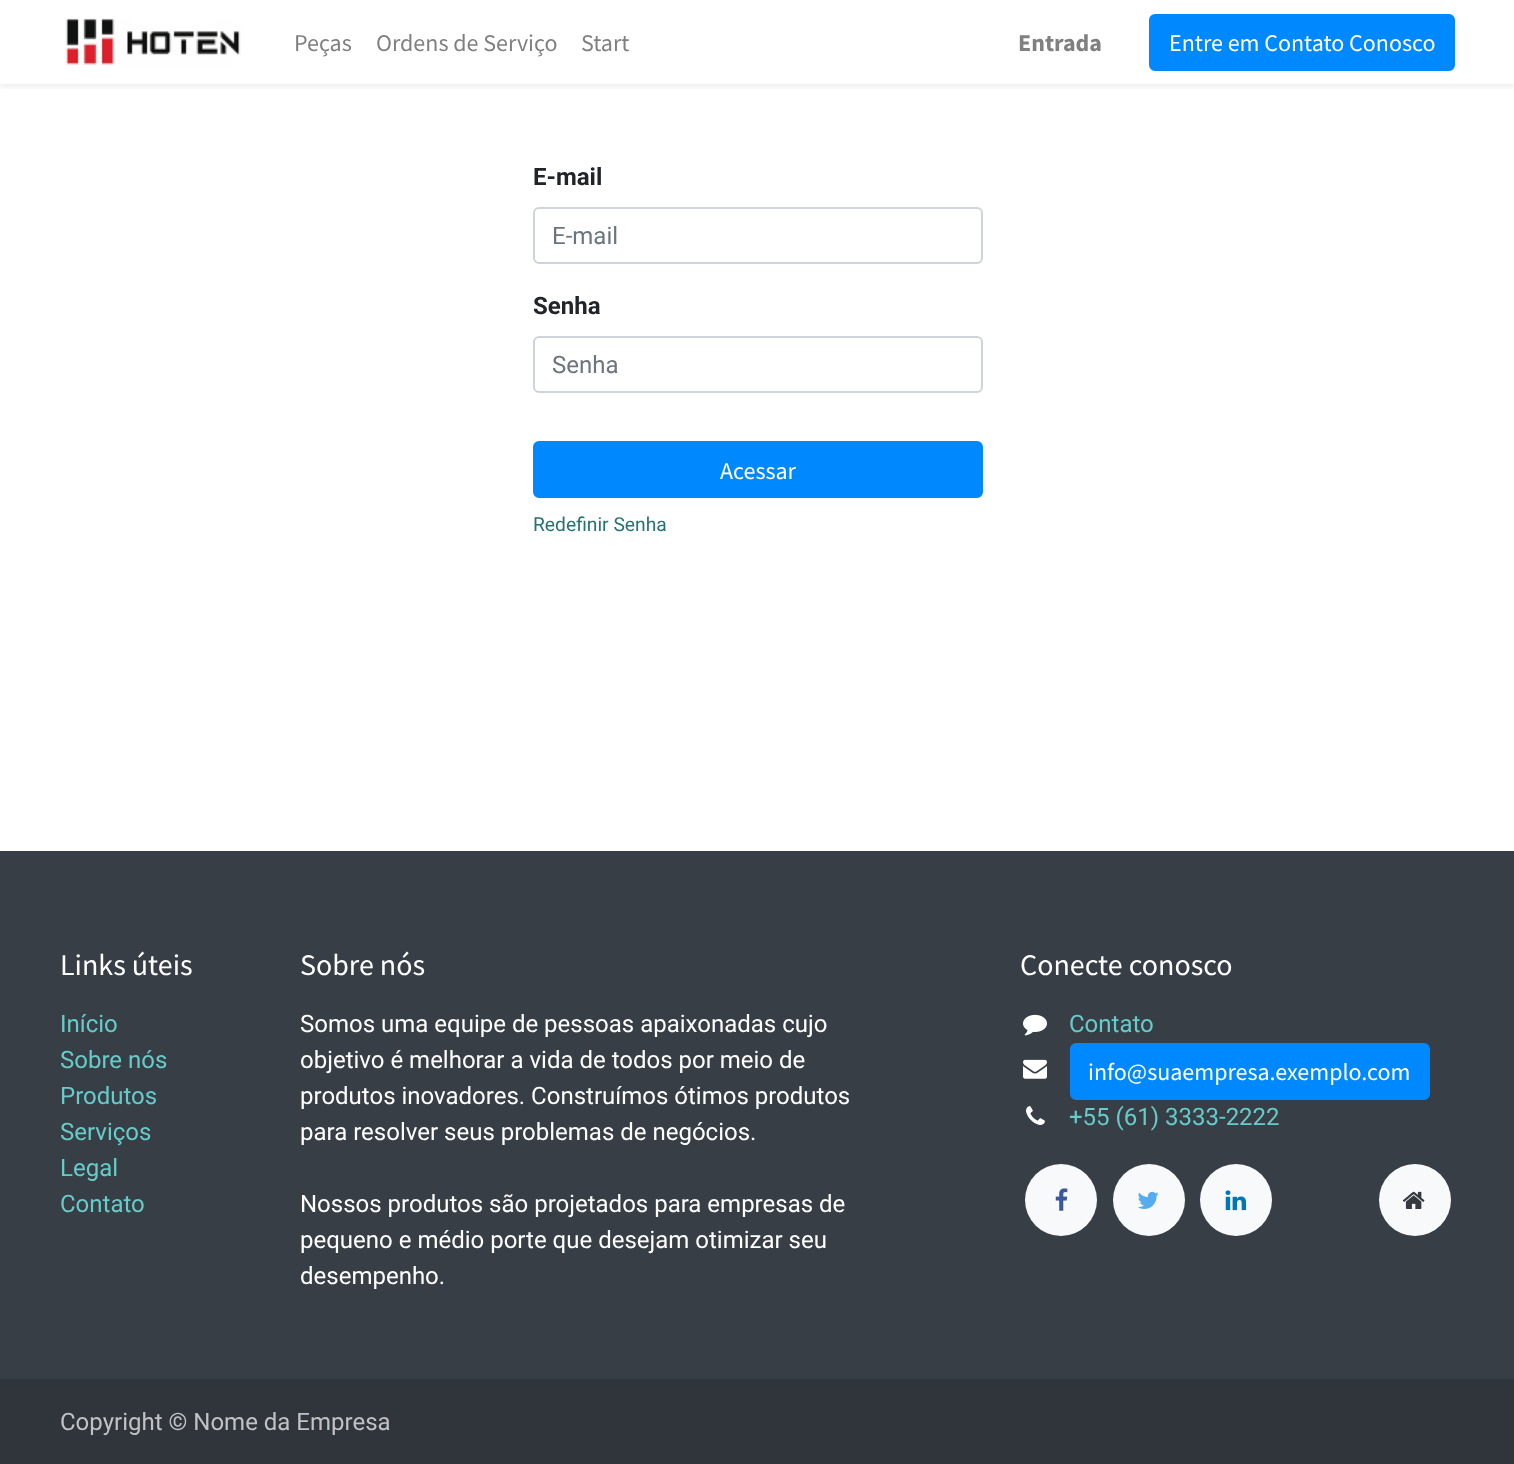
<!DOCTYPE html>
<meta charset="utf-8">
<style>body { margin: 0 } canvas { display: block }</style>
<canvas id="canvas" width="1514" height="1464"></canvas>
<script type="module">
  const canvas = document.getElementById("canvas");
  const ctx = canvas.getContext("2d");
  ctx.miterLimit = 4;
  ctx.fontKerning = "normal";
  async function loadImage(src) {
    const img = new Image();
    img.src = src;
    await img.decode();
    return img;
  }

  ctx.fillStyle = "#ffffff";
  ctx.fillRect(0, 0, 1514, 1464);
  ctx.save();
  ctx.beginPath();
  ctx.rect(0, 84, 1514, 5);
  ctx.clip();
  ctx.fillStyle = "rgba(0, 0, 0, 0.07)";
  ctx.filter = "blur(3px)";
  ctx.beginPath();
  ctx.rect(0, 3, 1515, 84);
  ctx.fill();
  ctx.filter = "none";
  ctx.restore();
  ctx.drawImage(await loadImage("img1.png"), 65, 18, 176, 48);
  ctx.font = "24px Source Sans Pro";
  ctx.fillStyle = "#808080";
  ctx.fillText("Peças", 294, 51);
  ctx.fillText("Ordens de Serviço", 376, 51);
  ctx.fillText("Start", 581, 51);
  ctx.font = "bold 24px Source Sans Pro";
  ctx.fillText("Entrada", 1018, 51);
  ctx.fillStyle = "#0088ff";
  ctx.beginPath();
  ctx.roundRect(1150, 15, 304, 55, 5);
  ctx.fill();
  ctx.strokeStyle = "#0088ff";
  ctx.lineWidth = 2;
  ctx.stroke();
  ctx.font = "24px Source Sans Pro";
  ctx.fillStyle = "#ffffff";
  ctx.fillText("Entre em Contato Conosco", 1169, 51);
  ctx.font = "bold 24px Roboto";
  ctx.fillStyle = "#212529";
  ctx.fillText("E-mail", 533, 185);
  ctx.beginPath();
  ctx.roundRect(534, 208, 448, 55, 5);
  ctx.strokeStyle = "#ced4da";
  ctx.stroke();
  ctx.font = "24px Roboto";
  ctx.fillStyle = "#6c757d";
  ctx.fillText("E-mail", 552, 244);
  ctx.font = "bold 24px Roboto";
  ctx.fillStyle = "#212529";
  ctx.fillText("Senha", 533, 314);
  ctx.beginPath();
  ctx.roundRect(534, 337, 448, 55, 5);
  ctx.stroke();
  ctx.font = "24px Roboto";
  ctx.fillStyle = "#6c757d";
  ctx.fillText("Senha", 552, 373);
  ctx.fillStyle = "#0088ff";
  ctx.beginPath();
  ctx.roundRect(534, 442, 448, 55, 5);
  ctx.fill();
  ctx.strokeStyle = "#0088ff";
  ctx.stroke();
  ctx.font = "24px Source Sans Pro";
  ctx.fillStyle = "#ffffff";
  ctx.fillText("Acessar", 720, 479);
  ctx.font = "19.25px Roboto";
  ctx.fillStyle = "#267372";
  ctx.fillText("Redefinir Senha", 533, 531);
  ctx.fillStyle = "#383e45";
  ctx.fillRect(0, 851, 1514, 528);
  ctx.font = "30px Source Sans Pro";
  ctx.fillStyle = "#ffffff";
  ctx.fillText("Links úteis", 60, 975);
  ctx.font = "24px Roboto";
  ctx.fillStyle = "#66ccca";
  ctx.fillText("Início", 60, 1032);
  ctx.fillText("Sobre nós", 60, 1068);
  ctx.fillText("Produtos", 60, 1104);
  ctx.fillText("Serviços", 60, 1140);
  ctx.fillText("Legal", 60, 1176);
  ctx.fillText("Contato", 60, 1212);
  ctx.font = "30px Source Sans Pro";
  ctx.fillStyle = "#ffffff";
  ctx.fillText("Sobre nós", 300, 975);
  ctx.font = "24px Roboto";
  ctx.fillText("Somos uma equipe de pessoas apaixonadas cujo", 300, 1032);
  ctx.fillText("objetivo é melhorar a vida de todos por meio de", 300, 1068);
  ctx.fillText("produtos inovadores. Construímos ótimos produtos", 300, 1104);
  ctx.fillText("para resolver seus problemas de negócios.", 300, 1140);
  ctx.fillText("Nossos produtos são projetados para empresas de", 300, 1212);
  ctx.fillText("pequeno e médio porte que desejam otimizar seu", 300, 1248);
  ctx.fillText("desempenho.", 300, 1284);
  ctx.font = "30px Source Sans Pro";
  ctx.fillText("Conecte conosco", 1020, 975);
  ctx.drawImage(await loadImage("img2.png"), 1023, 1014, 24, 22);
  ctx.font = "24px Roboto";
  ctx.fillStyle = "#66ccca";
  ctx.fillText("Contato", 1069, 1032);
  ctx.drawImage(await loadImage("img3.png"), 1023, 1059, 24, 20);
  ctx.fillStyle = "#0088ff";
  ctx.beginPath();
  ctx.roundRect(1071, 1044, 358, 55, 5);
  ctx.fill();
  ctx.stroke();
  ctx.font = "24px Source Sans Pro";
  ctx.fillStyle = "#ffffff";
  ctx.fillText("info@suaempresa.exemplo.com", 1088, 1080);
  ctx.drawImage(await loadImage("img4.png"), 1026, 1106, 19, 19);
  ctx.font = "24px Roboto";
  ctx.fillStyle = "#66ccca";
  ctx.fillText("+55 (61) 3333-2222", 1069, 1125);
  ctx.fillStyle = "#f8f9fa";
  ctx.beginPath();
  ctx.arc(1061, 1200, 36, 0, Math.PI * 2);
  ctx.fill();
  ctx.drawImage(await loadImage("img5.png"), 1055, 1188, 13, 23);
  ctx.beginPath();
  ctx.arc(1149, 1200, 36, 0, Math.PI * 2);
  ctx.fill();
  ctx.drawImage(await loadImage("img6.png"), 1137, 1191, 22, 18);
  ctx.beginPath();
  ctx.arc(1236, 1200, 36, 0, Math.PI * 2);
  ctx.fill();
  ctx.drawImage(await loadImage("img7.png"), 1225, 1190, 22, 21);
  ctx.beginPath();
  ctx.arc(1415, 1200, 36, 0, Math.PI * 2);
  ctx.fill();
  ctx.drawImage(await loadImage("img8.png"), 1402, 1191, 23, 18);
  ctx.fillStyle = "#30353b";
  ctx.fillRect(0, 1379, 1514, 85);
  ctx.fillStyle = "#c1c2c4";
  ctx.fillText("Copyright © Nome da Empresa", 60, 1430);
</script>
